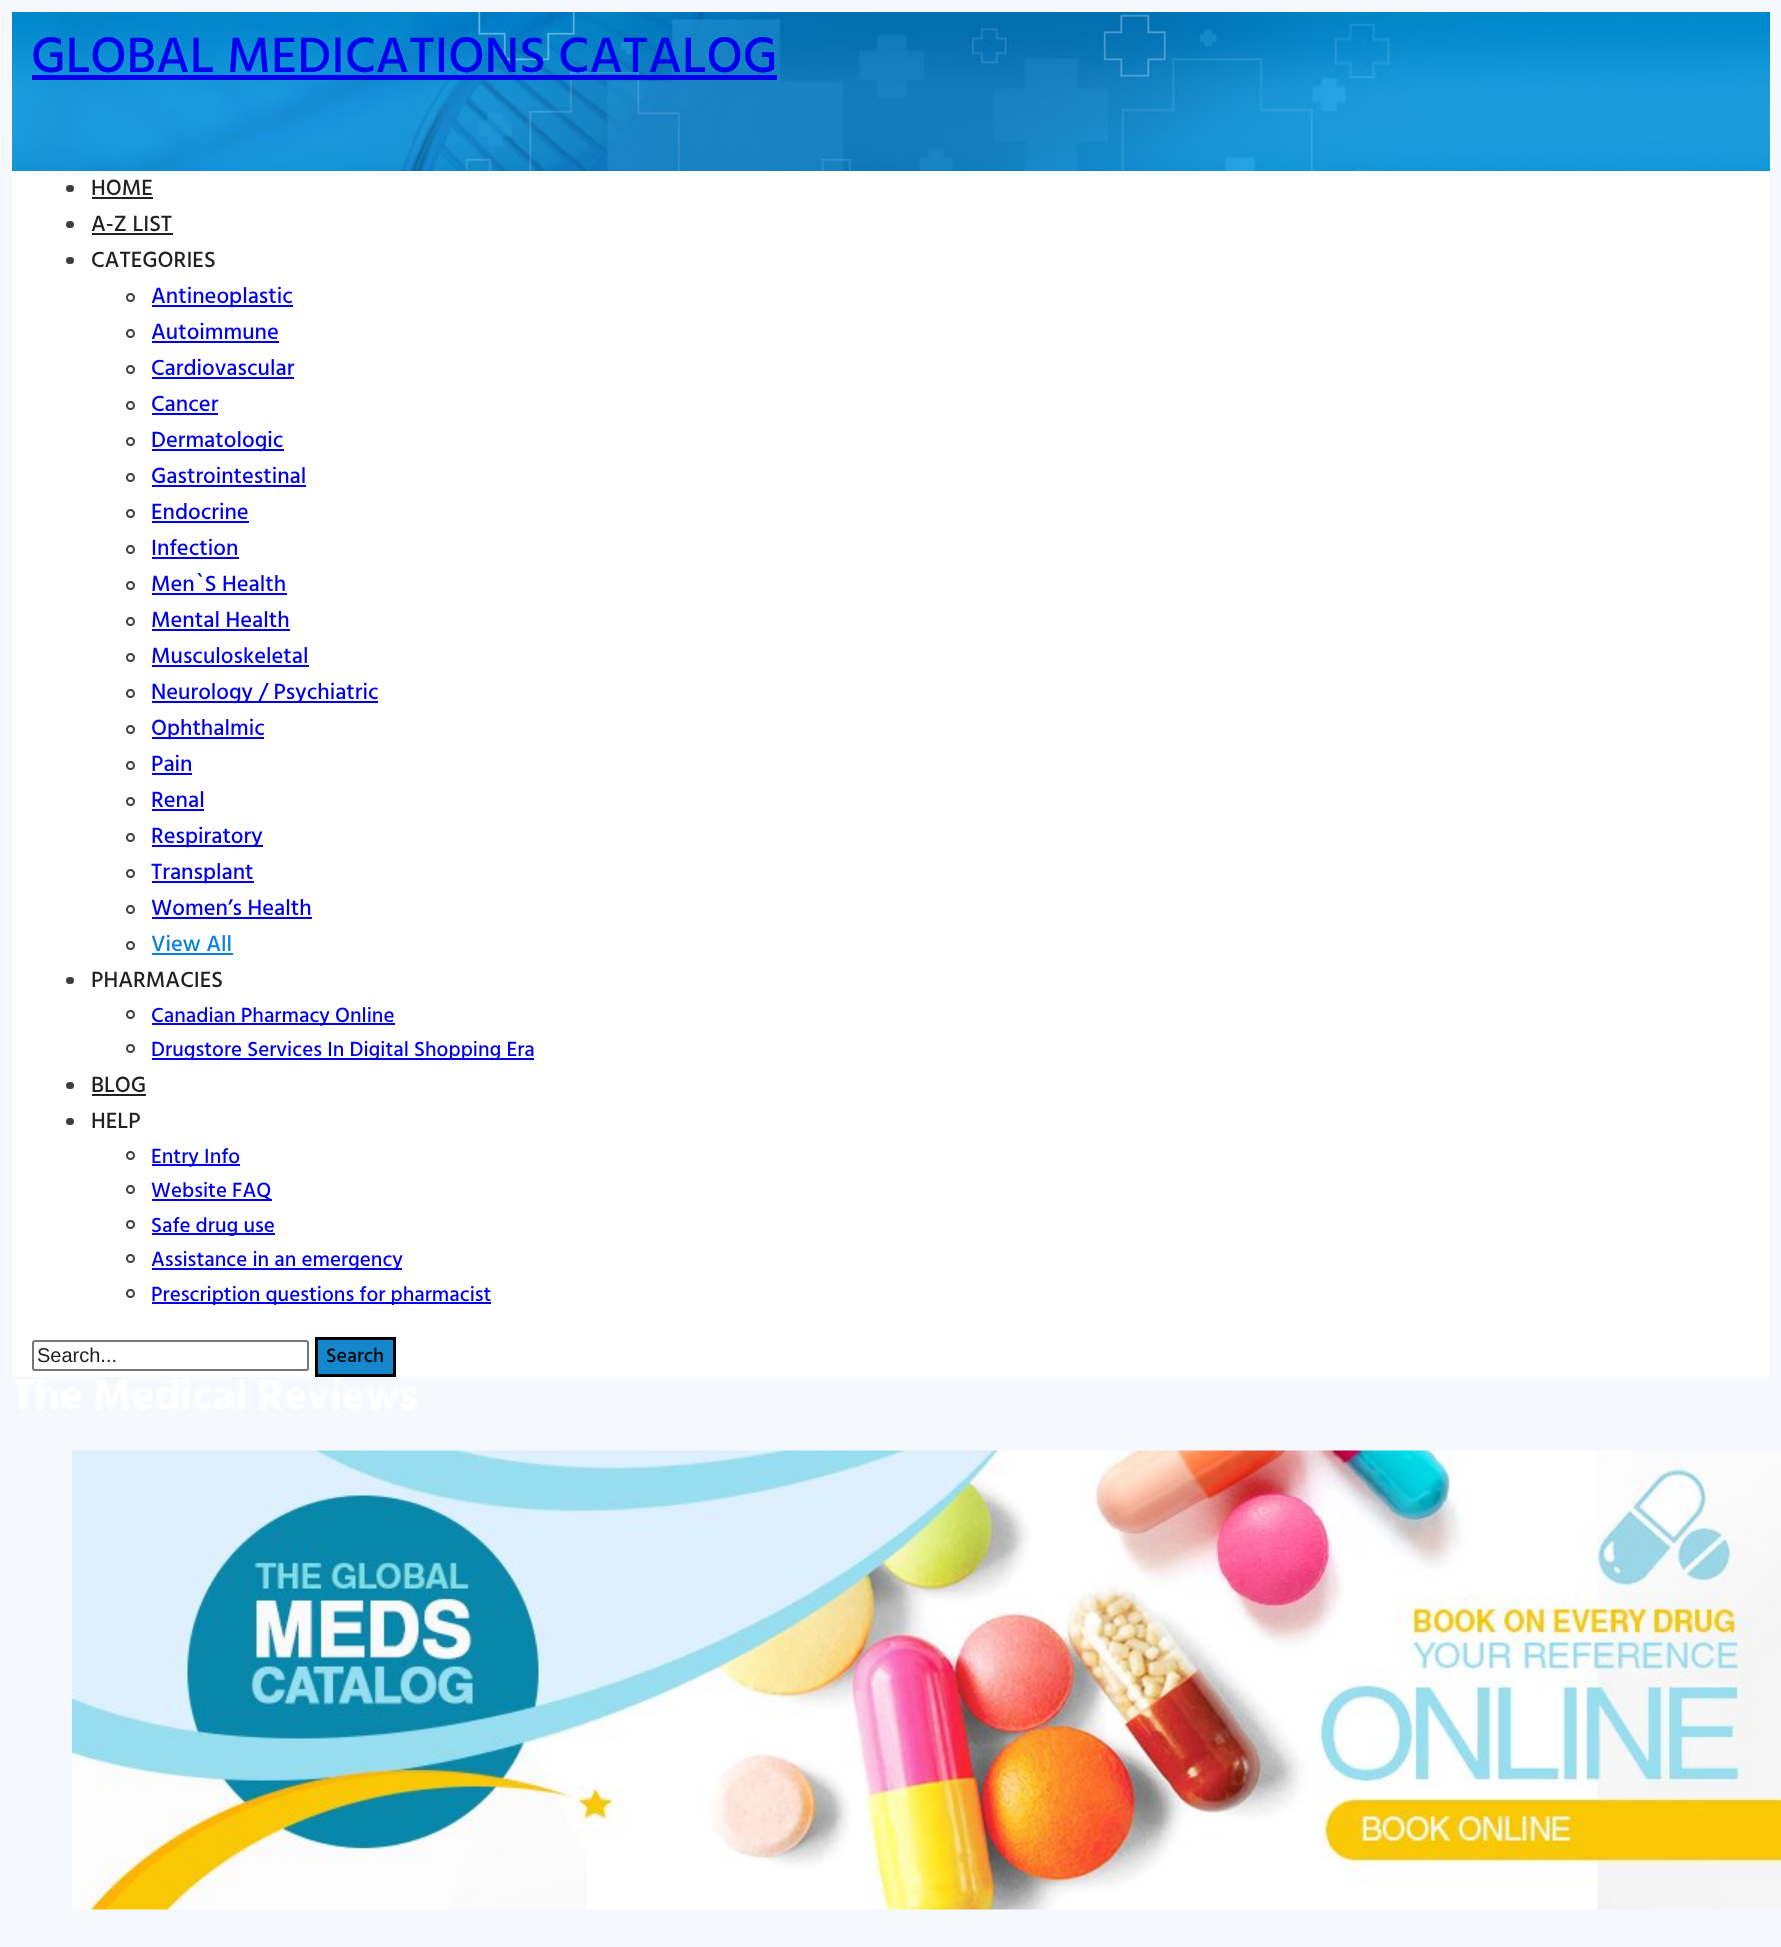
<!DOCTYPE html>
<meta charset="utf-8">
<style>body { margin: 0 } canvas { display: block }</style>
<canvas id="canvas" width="1781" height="1947"></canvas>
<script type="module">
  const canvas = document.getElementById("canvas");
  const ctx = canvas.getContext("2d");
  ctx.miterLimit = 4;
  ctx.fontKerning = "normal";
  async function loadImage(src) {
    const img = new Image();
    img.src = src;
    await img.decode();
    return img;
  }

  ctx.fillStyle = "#f5f9ff";
  ctx.fillRect(0, 0, 1781, 1947);
  ctx.drawImage(await loadImage("img1.png"), 12, 12, 1758, 159);
  ctx.font = "500 51px Hind";
  ctx.fillStyle = "#0000ee";
  ctx.fillText("GLOBAL MEDICATIONS CATALOG", 31, 72);
  ctx.fillRect(32, 75, 745, 5);
  ctx.fillStyle = "#ffffff";
  ctx.fillRect(12, 171, 1758, 1206);
  ctx.fillStyle = "#3e3e3e";
  ctx.beginPath();
  ctx.roundRect(66, 185, 8, 7, 3.5);
  ctx.fill();
  ctx.font = "500 22.5px Hind";
  ctx.fillStyle = "#212121";
  ctx.fillText("HOME", 91, 195);
  ctx.fillRect(92, 197, 61, 2);
  ctx.fillStyle = "#3e3e3e";
  ctx.beginPath();
  ctx.roundRect(66, 221, 8, 7, 3.5);
  ctx.fill();
  ctx.fillStyle = "#212121";
  ctx.fillText("A-Z LIST", 91, 231);
  ctx.fillRect(92, 233, 81, 2);
  ctx.fillStyle = "#3e3e3e";
  ctx.beginPath();
  ctx.roundRect(66, 257, 8, 7, 3.5);
  ctx.fill();
  ctx.fillStyle = "#212121";
  ctx.fillText("CATEGORIES", 91, 267);
  ctx.beginPath();
  ctx.arc(130.5, 297.5, 3.5, 0, Math.PI * 2);
  ctx.strokeStyle = "#3e3e3e";
  ctx.lineWidth = 2;
  ctx.stroke();
  ctx.fillStyle = "#0000ee";
  ctx.fillRect(152, 305, 141, 2);
  ctx.fillText("Antineoplastic", 151, 303);
  ctx.beginPath();
  ctx.arc(130.5, 333.5, 3.5, 0, Math.PI * 2);
  ctx.stroke();
  ctx.fillText("Autoimmune", 151, 339);
  ctx.fillRect(152, 341, 127, 2);
  ctx.beginPath();
  ctx.arc(130.5, 369.5, 3.5, 0, Math.PI * 2);
  ctx.stroke();
  ctx.fillText("Cardiovascular", 151, 375);
  ctx.fillRect(152, 377, 142, 2);
  ctx.beginPath();
  ctx.arc(130.5, 405.5, 3.5, 0, Math.PI * 2);
  ctx.stroke();
  ctx.fillText("Cancer", 151, 411);
  ctx.fillRect(152, 413, 66, 2);
  ctx.beginPath();
  ctx.arc(130.5, 441.5, 3.5, 0, Math.PI * 2);
  ctx.stroke();
  ctx.fillRect(152, 449, 132, 2);
  ctx.fillText("Dermatologic", 151, 447);
  ctx.beginPath();
  ctx.arc(130.5, 477.5, 3.5, 0, Math.PI * 2);
  ctx.stroke();
  ctx.fillText("Gastrointestinal", 151, 483);
  ctx.fillRect(152, 485, 154, 2);
  ctx.beginPath();
  ctx.arc(130.5, 513.5, 3.5, 0, Math.PI * 2);
  ctx.stroke();
  ctx.fillText("Endocrine", 151, 519);
  ctx.fillRect(152, 521, 97, 2);
  ctx.beginPath();
  ctx.arc(130.5, 549.5, 3.5, 0, Math.PI * 2);
  ctx.stroke();
  ctx.fillText("Infection", 151, 555);
  ctx.fillRect(152, 557, 87, 2);
  ctx.beginPath();
  ctx.arc(130.5, 585.5, 3.5, 0, Math.PI * 2);
  ctx.stroke();
  ctx.fillText("Men`S Health", 151, 591);
  ctx.fillRect(152, 593, 135, 2);
  ctx.beginPath();
  ctx.arc(130.5, 621.5, 3.5, 0, Math.PI * 2);
  ctx.stroke();
  ctx.fillText("Mental Health", 151, 627);
  ctx.fillRect(152, 629, 138, 2);
  ctx.beginPath();
  ctx.arc(130.5, 657.5, 3.5, 0, Math.PI * 2);
  ctx.stroke();
  ctx.fillText("Musculoskeletal", 151, 663);
  ctx.fillRect(152, 665, 157, 2);
  ctx.beginPath();
  ctx.arc(130.5, 693.5, 3.5, 0, Math.PI * 2);
  ctx.stroke();
  ctx.fillRect(152, 701, 226, 2);
  ctx.fillText("Neurology / Psychiatric", 151, 699);
  ctx.beginPath();
  ctx.arc(130.5, 729.5, 3.5, 0, Math.PI * 2);
  ctx.stroke();
  ctx.fillRect(152, 737, 112, 2);
  ctx.fillText("Ophthalmic", 151, 735);
  ctx.beginPath();
  ctx.arc(130.5, 765.5, 3.5, 0, Math.PI * 2);
  ctx.stroke();
  ctx.fillText("Pain", 151, 771);
  ctx.fillRect(152, 773, 40, 2);
  ctx.beginPath();
  ctx.arc(130.5, 801.5, 3.5, 0, Math.PI * 2);
  ctx.stroke();
  ctx.fillText("Renal", 151, 807);
  ctx.fillRect(152, 809, 52, 2);
  ctx.beginPath();
  ctx.arc(130.5, 837.5, 3.5, 0, Math.PI * 2);
  ctx.stroke();
  ctx.fillRect(152, 845, 111, 2);
  ctx.fillText("Respiratory", 151, 843);
  ctx.beginPath();
  ctx.arc(130.5, 873.5, 3.5, 0, Math.PI * 2);
  ctx.stroke();
  ctx.fillRect(152, 881, 102, 2);
  ctx.fillText("Transplant", 151, 879);
  ctx.beginPath();
  ctx.arc(130.5, 909.5, 3.5, 0, Math.PI * 2);
  ctx.stroke();
  ctx.fillText("Women’s Health", 151, 915);
  ctx.fillRect(152, 917, 160, 2);
  ctx.beginPath();
  ctx.arc(130.5, 945.5, 3.5, 0, Math.PI * 2);
  ctx.stroke();
  ctx.fillStyle = "#0881dd";
  ctx.fillText("View All", 151, 951);
  ctx.fillRect(152, 953, 81, 2);
  ctx.fillStyle = "#3e3e3e";
  ctx.beginPath();
  ctx.roundRect(66, 977, 8, 7, 3.5);
  ctx.fill();
  ctx.fillStyle = "#212121";
  ctx.fillText("PHARMACIES", 91, 987);
  ctx.beginPath();
  ctx.arc(130.5, 1014.5, 3.5, 0, Math.PI * 2);
  ctx.stroke();
  ctx.fillStyle = "#0000ee";
  ctx.fillRect(152, 1023, 243, 2);
  ctx.font = "500 21px Hind";
  ctx.fillText("Canadian Pharmacy Online", 151, 1022);
  ctx.beginPath();
  ctx.arc(130.5, 1048.5, 3.5, 0, Math.PI * 2);
  ctx.stroke();
  ctx.fillRect(152, 1058, 382, 2);
  ctx.fillText("Drugstore Services In Digital Shopping Era", 151, 1056);
  ctx.fillStyle = "#3e3e3e";
  ctx.beginPath();
  ctx.roundRect(66, 1082, 8, 7, 3.5);
  ctx.fill();
  ctx.font = "500 22.5px Hind";
  ctx.fillStyle = "#212121";
  ctx.fillText("BLOG", 91, 1092);
  ctx.fillRect(92, 1094, 54, 2);
  ctx.fillStyle = "#3e3e3e";
  ctx.beginPath();
  ctx.roundRect(66, 1118, 8, 7, 3.5);
  ctx.fill();
  ctx.fillStyle = "#212121";
  ctx.fillText("HELP", 91, 1128);
  ctx.beginPath();
  ctx.arc(130.5, 1155.5, 3.5, 0, Math.PI * 2);
  ctx.stroke();
  ctx.fillStyle = "#0000ee";
  ctx.fillRect(152, 1164, 88, 2);
  ctx.font = "500 21px Hind";
  ctx.fillText("Entry Info", 151, 1163);
  ctx.beginPath();
  ctx.arc(130.5, 1189.5, 3.5, 0, Math.PI * 2);
  ctx.stroke();
  ctx.fillRect(152, 1199, 120, 2);
  ctx.fillText("Website FAQ", 151, 1197);
  ctx.beginPath();
  ctx.arc(130.5, 1224.5, 3.5, 0, Math.PI * 2);
  ctx.stroke();
  ctx.fillRect(152, 1233, 123, 2);
  ctx.fillText("Safe drug use", 151, 1232);
  ctx.beginPath();
  ctx.arc(130.5, 1258.5, 3.5, 0, Math.PI * 2);
  ctx.stroke();
  ctx.fillRect(152, 1268, 250, 2);
  ctx.fillText("Assistance in an emergency", 151, 1266);
  ctx.beginPath();
  ctx.arc(130.5, 1293.5, 3.5, 0, Math.PI * 2);
  ctx.stroke();
  ctx.fillRect(152, 1302, 339, 2);
  ctx.fillText("Prescription questions for pharmacist", 151, 1301);
  ctx.beginPath();
  ctx.roundRect(33, 1341, 275, 29, 2);
  ctx.strokeStyle = "#767676";
  ctx.stroke();
  ctx.font = "20px Liberation Sans";
  ctx.fillStyle = "#212121";
  ctx.fillText("Search...", 37, 1362);
  ctx.fillStyle = "#1587cc";
  ctx.beginPath();
  ctx.rect(316.5, 1338.5, 78, 37);
  ctx.fill();
  ctx.strokeStyle = "#000000";
  ctx.lineWidth = 3;
  ctx.stroke();
  ctx.font = "500 20px Hind";
  ctx.fillStyle = "#000000";
  ctx.fillText("Search", 326, 1362);
  ctx.drawImage(await loadImage("img2.png"), 12, 1377, 405, 33);
  ctx.drawImage(await loadImage("img3.png"), 72, 1450, 1709, 460);
</script>
